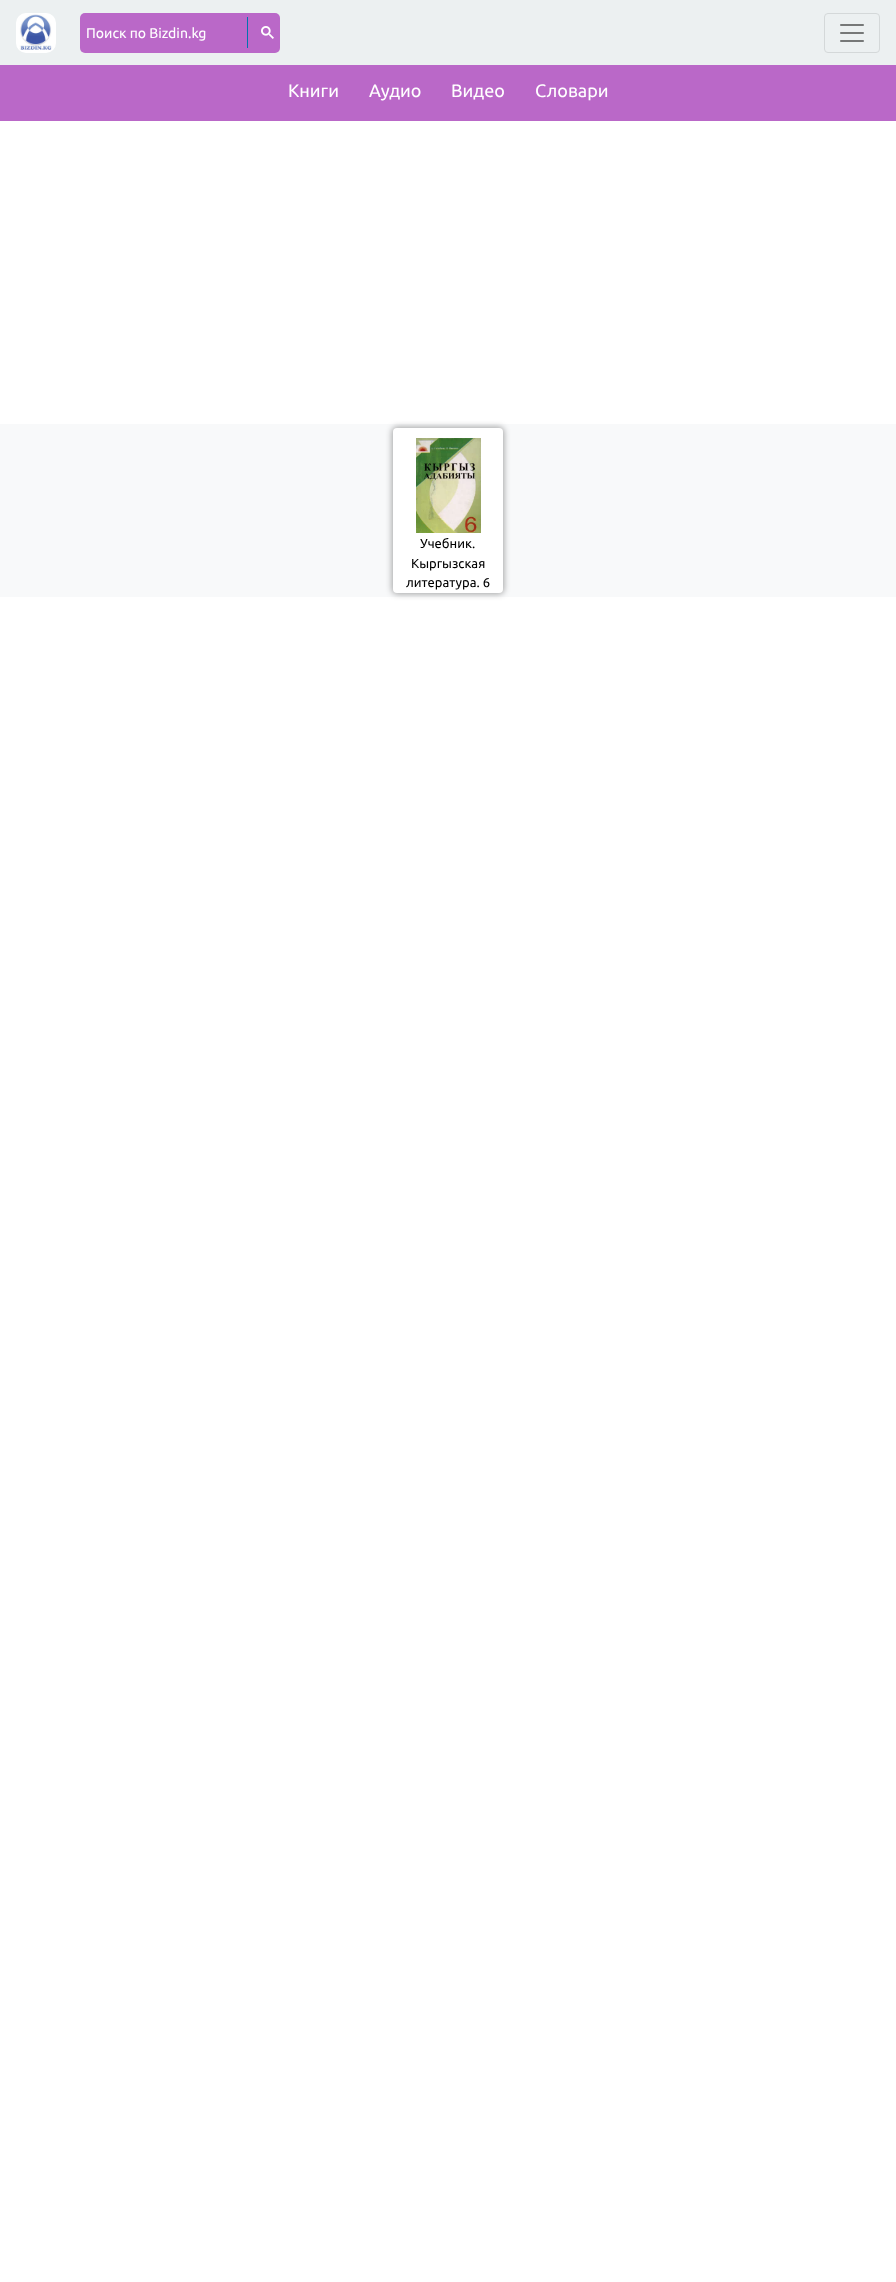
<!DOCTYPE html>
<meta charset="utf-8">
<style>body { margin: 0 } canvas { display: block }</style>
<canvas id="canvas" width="896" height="2282"></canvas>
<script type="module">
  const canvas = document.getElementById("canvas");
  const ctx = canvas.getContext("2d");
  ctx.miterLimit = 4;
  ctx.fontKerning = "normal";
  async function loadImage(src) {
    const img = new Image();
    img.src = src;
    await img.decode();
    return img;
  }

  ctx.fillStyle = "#ffffff";
  ctx.fillRect(0, 0, 896, 2282);
  ctx.fillStyle = "#ecf0f1";
  ctx.fillRect(0, 0, 896, 65);
  ctx.drawImage(await loadImage("img1.png"), 16, 13, 40, 40);
  ctx.fillStyle = "#ba68c8";
  ctx.beginPath();
  ctx.roundRect(80, 13, 200, 40, 5);
  ctx.fill();
  ctx.font = "14px Ubuntu";
  ctx.fillStyle = "#ffffff";
  ctx.fillText("Поиск по Bizdin.kg", 86, 38);
  ctx.fillStyle = "#0173af";
  ctx.fillRect(247, 17, 1, 31);
  ctx.drawImage(await loadImage("img2.png"), 261, 26, 13, 13);
  ctx.beginPath();
  ctx.roundRect(824.5, 13.5, 55, 39, 3.5);
  ctx.strokeStyle = "#d4d8d9";
  ctx.stroke();
  ctx.drawImage(await loadImage("img3.png"), 840, 24, 24, 18);
  ctx.fillStyle = "#ba68c8";
  ctx.fillRect(0, 65, 896, 56);
  ctx.font = "18px Ubuntu";
  ctx.fillStyle = "#ffffff";
  ctx.fillText("Книги", 288, 97);
  ctx.fillText("Аудио", 369, 97);
  ctx.fillText("Видео", 451, 97);
  ctx.fillText("Словари", 535, 97);
  ctx.fillStyle = "#f8f9fa";
  ctx.fillRect(0, 424, 896, 173);
  ctx.fillStyle = "rgba(0, 0, 0, 0.35)";
  ctx.filter = "blur(3px)";
  ctx.beginPath();
  ctx.roundRect(392, 427, 112, 167, 5);
  ctx.fill();
  ctx.filter = "none";
  ctx.fillStyle = "#ffffff";
  ctx.beginPath();
  ctx.roundRect(393, 428, 110, 165, 4);
  ctx.fill();
  ctx.drawImage(await loadImage("img4.png"), 416, 438, 65, 95);
  ctx.font = "13px Ubuntu";
  ctx.fillStyle = "#000000";
  ctx.fillText("Учебник.", 420, 548);
  ctx.fillText("Кыргызская", 411, 568);
  ctx.fillText("литература. 6", 406, 587);
</script>
